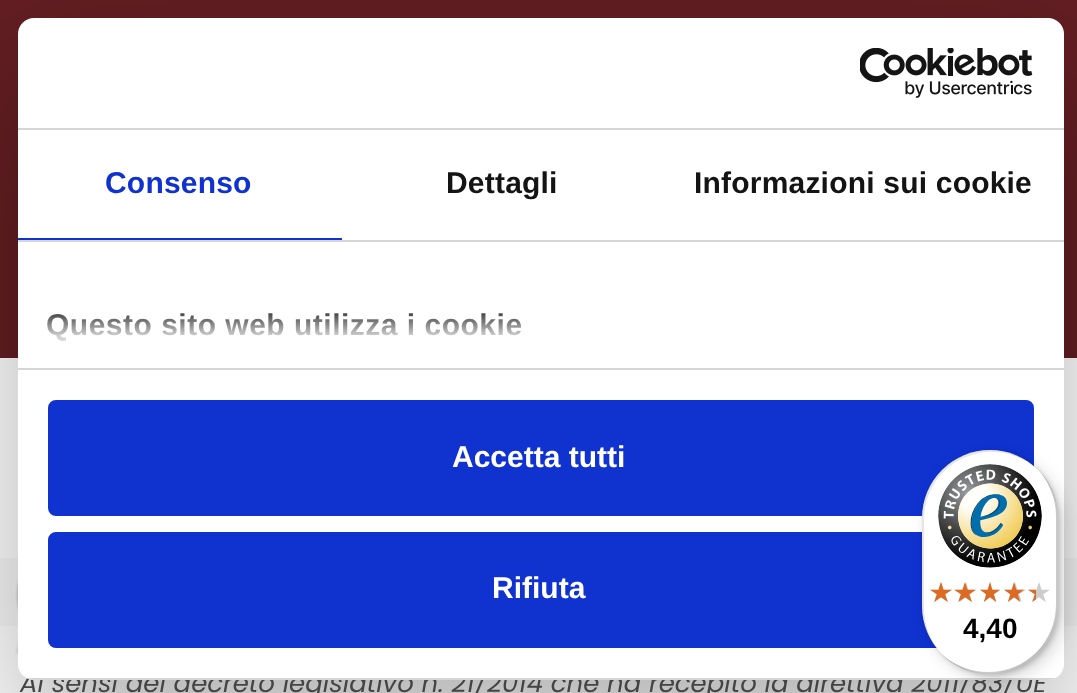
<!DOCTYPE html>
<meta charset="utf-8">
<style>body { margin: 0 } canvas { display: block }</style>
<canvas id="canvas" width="1077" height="693"></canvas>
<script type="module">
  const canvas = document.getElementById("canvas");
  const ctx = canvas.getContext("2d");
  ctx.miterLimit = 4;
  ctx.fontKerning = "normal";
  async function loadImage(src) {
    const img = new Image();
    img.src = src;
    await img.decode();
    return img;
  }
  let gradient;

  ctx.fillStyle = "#ffffff";
  ctx.fillRect(0, 0, 1077, 693);
  ctx.fillStyle = "#631e22";
  ctx.fillRect(0, 0, 1077, 358);
  ctx.fillStyle = "#f9f9f9";
  ctx.fillRect(0, 558, 1077, 68);
  ctx.drawImage(await loadImage("img2.png"), 15, 580, 3, 74);
  ctx.fillStyle = "rgba(0, 0, 0, 0.3)";
  ctx.filter = "blur(68px)";
  ctx.beginPath();
  ctx.roundRect(18, 82, 1046, 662, 16);
  ctx.fill();
  ctx.filter = "none";
  ctx.font = "italic 26px Poppins";
  ctx.fillStyle = "#444444";
  ctx.fillText("Ai sensi del decreto legislativo n. 21/2014 che ha recepito la direttiva 2011/83/UE", 20, 692);
  ctx.fillStyle = "#ffffff";
  ctx.beginPath();
  ctx.roundRect(18, 18, 1046, 662, 16);
  ctx.fill();
  ctx.fillStyle = "#d6d6d6";
  ctx.fillRect(18, 128, 1046, 2);
  ctx.drawImage(await loadImage("img1.png"), 860, 48, 173, 50);
  ctx.fillRect(18, 240, 1046, 2);
  ctx.fillStyle = "#1032cf";
  ctx.fillRect(18, 238, 324, 2);
  ctx.letterSpacing = "0.2px";
  ctx.font = "bold 30px Liberation Sans";
  ctx.fillText("Consenso", 105, 193);
  ctx.fillStyle = "#141414";
  ctx.fillText("Dettagli", 446, 193);
  ctx.fillText("Informazioni sui cookie", 694, 193);
  ctx.fillStyle = "#d6d6d6";
  ctx.fillRect(18, 368, 1046, 2);
  ctx.letterSpacing = "0.5px";
  ctx.fillStyle = "#141414";
  ctx.fillText("Questo sito web utilizza i cookie", 46, 335);
  gradient = ctx.createLinearGradient(527, 367, 527, 305);
  gradient.addColorStop(0, "#ffffff");
  gradient.addColorStop(0.5, "rgba(255, 255, 255, 0.8)");
  gradient.addColorStop(1, "rgba(255, 255, 255, 0)");
  ctx.fillStyle = gradient;
  ctx.fillRect(47, 313, 475, 28);
  ctx.save();
  ctx.beginPath();
  ctx.roundRect(18, 18, 1046, 662, 16);
  ctx.clip();
  ctx.fillStyle = "#d6d6d6";
  ctx.fillRect(18, 678, 1046, 2);
  ctx.restore();
  ctx.fillStyle = "#1032cf";
  ctx.beginPath();
  ctx.roundRect(50, 402, 982, 112, 6);
  ctx.fill();
  ctx.strokeStyle = "#1032cf";
  ctx.lineWidth = 4;
  ctx.stroke();
  ctx.letterSpacing = "0px";
  ctx.fillStyle = "#ffffff";
  ctx.fillText("Accetta tutti", 452, 467);
  ctx.fillStyle = "#1032cf";
  ctx.beginPath();
  ctx.roundRect(50, 534, 982, 112, 6);
  ctx.fill();
  ctx.stroke();
  ctx.fillStyle = "#ffffff";
  ctx.fillText("Rifiuta", 492, 598);
  ctx.fillStyle = "rgba(0, 0, 0, 0.15)";
  ctx.filter = "blur(8px)";
  ctx.beginPath();
  ctx.roundRect(928, 456, 136, 224, 68);
  ctx.fill();
  ctx.filter = "none";
  ctx.filter = "blur(2px)";
  ctx.beginPath();
  ctx.roundRect(924, 452, 136, 224, 68);
  ctx.fill();
  ctx.filter = "none";
  ctx.fillStyle = "#ffffff";
  ctx.beginPath();
  ctx.roundRect(922, 450, 136, 224, 68);
  ctx.fill();
  ctx.fillStyle = "rgba(0, 0, 0, 0.1)";
  ctx.beginPath();
  ctx.moveTo(992, 452);
  ctx.bezierCurveTo(1008, 452, 1023, 458, 1035, 467);
  ctx.bezierCurveTo(1023, 456, 1007, 450, 990, 450);
  ctx.bezierCurveTo(952, 450, 922, 480, 922, 518);
  ctx.lineTo(922, 606);
  ctx.bezierCurveTo(922, 623, 928, 639, 939, 651);
  ctx.bezierCurveTo(930, 639, 924, 624, 924, 608);
  ctx.lineTo(924, 520);
  ctx.bezierCurveTo(924, 482, 954, 452, 992, 452);
  ctx.closePath();
  ctx.fill();
  ctx.fillStyle = "rgba(0, 0, 0, 0.2)";
  ctx.beginPath();
  ctx.moveTo(945, 657);
  ctx.bezierCurveTo(957, 668, 973, 674, 990, 674);
  ctx.bezierCurveTo(1028, 674, 1058, 644, 1058, 606);
  ctx.lineTo(1058, 518);
  ctx.bezierCurveTo(1058, 501, 1052, 485, 1041, 473);
  ctx.bezierCurveTo(1050, 485, 1056, 500, 1056, 516);
  ctx.lineTo(1056, 604);
  ctx.bezierCurveTo(1056, 642, 1026, 672, 988, 672);
  ctx.bezierCurveTo(972, 672, 957, 666, 945, 657);
  ctx.closePath();
  ctx.fill();
  ctx.fillStyle = "rgba(50, 50, 50, 0.2)";
  ctx.beginPath();
  ctx.moveTo(940, 653);
  ctx.bezierCurveTo(953, 666, 970, 674, 990, 674);
  ctx.bezierCurveTo(1028, 674, 1058, 644, 1058, 606);
  ctx.lineTo(1058, 518);
  ctx.bezierCurveTo(1058, 498, 1050, 481, 1037, 468);
  ctx.bezierCurveTo(1049, 481, 1057, 498, 1057, 517);
  ctx.lineTo(1057, 605);
  ctx.bezierCurveTo(1057, 642, 1026, 673, 989, 673);
  ctx.bezierCurveTo(970, 673, 953, 665, 940, 653);
  ctx.closePath();
  ctx.fill();
  ctx.fillStyle = "rgba(255, 255, 255, 0.3)";
  ctx.beginPath();
  ctx.moveTo(949, 660);
  ctx.bezierCurveTo(961, 669, 975, 674, 990, 674);
  ctx.bezierCurveTo(1028, 674, 1058, 644, 1058, 606);
  ctx.lineTo(1058, 518);
  ctx.bezierCurveTo(1058, 503, 1053, 489, 1044, 477);
  ctx.bezierCurveTo(1052, 488, 1057, 502, 1057, 517);
  ctx.lineTo(1057, 605);
  ctx.bezierCurveTo(1057, 643, 1027, 673, 989, 673);
  ctx.bezierCurveTo(974, 673, 960, 668, 949, 660);
  ctx.closePath();
  ctx.fill();
  ctx.drawImage(await loadImage("img3.png"), 938, 464, 104, 104);
  ctx.drawImage(await loadImage("img4.png"), 930, 582, 22, 20);
  ctx.drawImage(await loadImage("img5.png"), 956, 582, 20, 20);
  ctx.drawImage(await loadImage("img6.png"), 980, 582, 20, 20);
  ctx.drawImage(await loadImage("img7.png"), 1004, 582, 22, 20);
  ctx.drawImage(await loadImage("img7.png"), 1028, 582, 22, 20);
  ctx.drawImage(await loadImage("img8.png"), 930, 582, 22, 20);
  ctx.drawImage(await loadImage("img9.png"), 954, 582, 22, 20);
  ctx.drawImage(await loadImage("img10.png"), 980, 582, 20, 20);
  ctx.drawImage(await loadImage("img11.png"), 1004, 582, 20, 20);
  ctx.drawImage(await loadImage("img12.png"), 1028, 589, 8, 13);
  ctx.font = "bold 28px Liberation Sans";
  ctx.fillStyle = "#000000";
  ctx.fillText("4,40", 963, 638);
</script>
